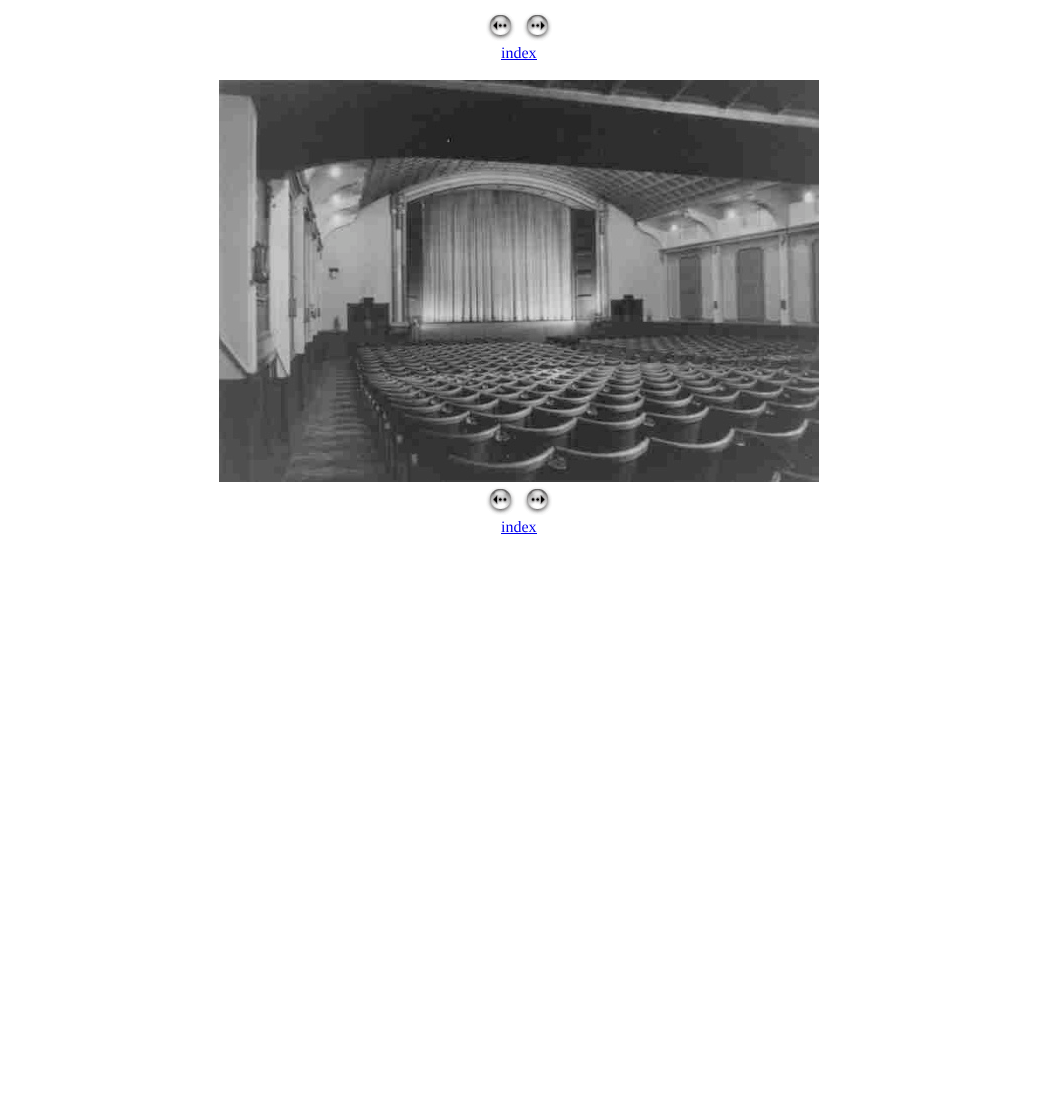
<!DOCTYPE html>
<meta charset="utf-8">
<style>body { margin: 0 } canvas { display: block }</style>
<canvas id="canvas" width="1038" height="1105"></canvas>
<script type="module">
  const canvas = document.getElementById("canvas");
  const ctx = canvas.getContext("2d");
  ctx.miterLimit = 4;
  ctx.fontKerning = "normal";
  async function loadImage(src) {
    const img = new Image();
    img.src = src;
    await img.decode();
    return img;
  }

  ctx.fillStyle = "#ffffff";
  ctx.fillRect(0, 0, 1038, 1105);
  ctx.drawImage(await loadImage("img1.png"), 486, 13, 29, 28);
  ctx.drawImage(await loadImage("img2.png"), 523, 13, 29, 28);
  ctx.font = "16px Liberation Serif";
  ctx.fillStyle = "#0000ee";
  ctx.fillText("index", 501, 58);
  ctx.fillRect(501, 59, 36, 1);
  ctx.drawImage(await loadImage("img3.png"), 219, 80, 600, 402);
  ctx.drawImage(await loadImage("img1.png"), 486, 487, 29, 28);
  ctx.drawImage(await loadImage("img2.png"), 523, 487, 29, 28);
  ctx.fillText("index", 501, 532);
  ctx.fillRect(501, 533, 36, 1);
</script>
